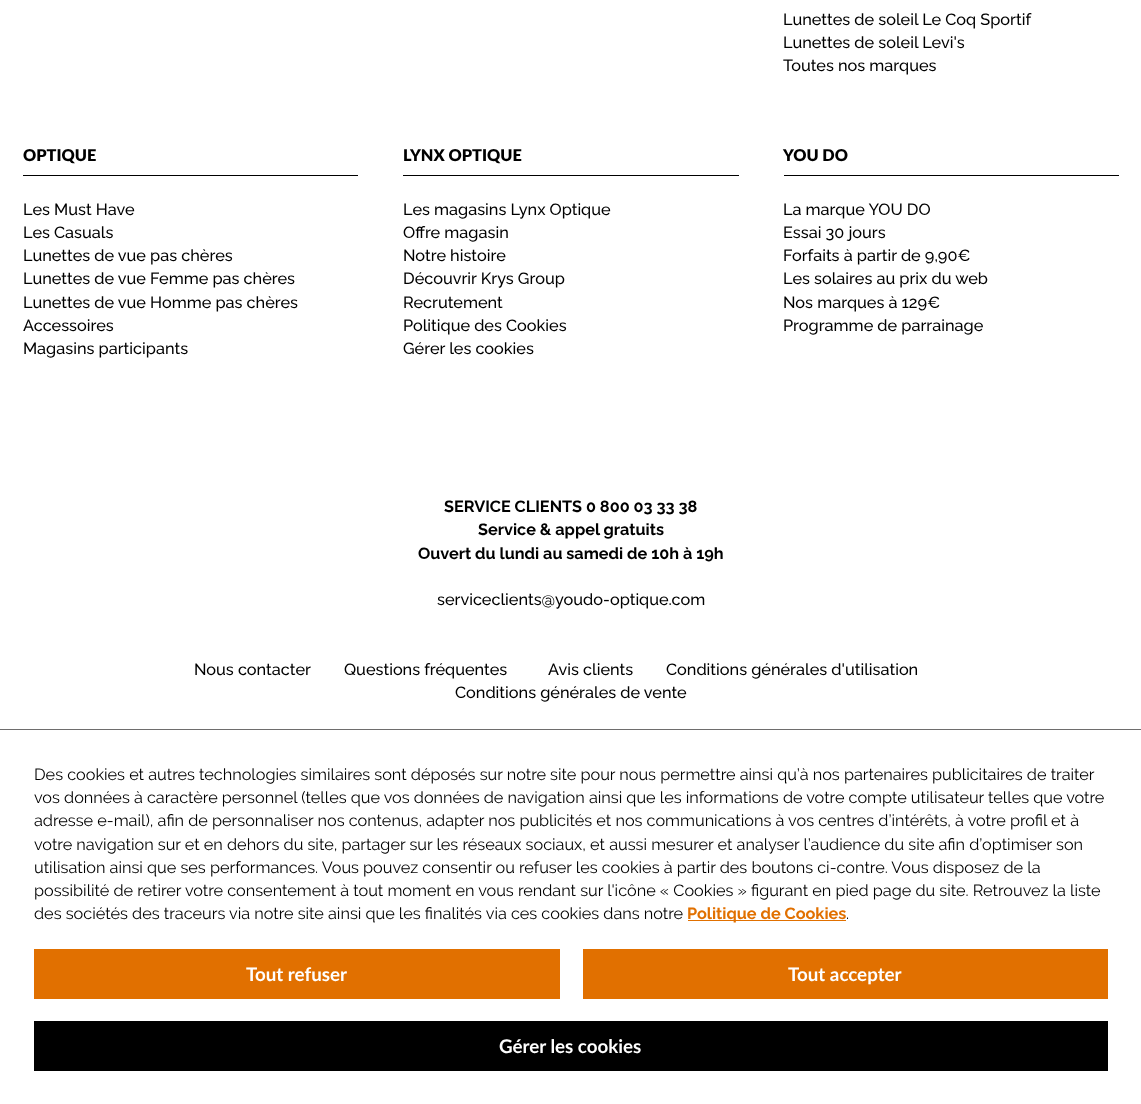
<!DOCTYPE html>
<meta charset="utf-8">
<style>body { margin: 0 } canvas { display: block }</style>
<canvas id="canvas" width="1141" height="1104"></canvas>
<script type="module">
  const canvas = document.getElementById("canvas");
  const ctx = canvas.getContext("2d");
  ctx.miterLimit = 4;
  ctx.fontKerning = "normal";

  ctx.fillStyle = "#ffffff";
  ctx.fillRect(0, 0, 1141, 1104);
  ctx.font = "500 16.25px Raleway";
  ctx.fillStyle = "#000000";
  ctx.fillText("Lunettes de soleil Le Coq Sportif", 783, 25);
  ctx.fillText("Lunettes de soleil Levi's", 783, 48);
  ctx.fillText("Toutes nos marques", 783, 71);
  ctx.fillRect(23, 175, 335, 1);
  ctx.font = "900 16.25px Lato";
  ctx.fillText("OPTIQUE", 23, 161);
  ctx.font = "500 16.25px Raleway";
  ctx.fillText("Les Must Have", 23, 215);
  ctx.fillText("Les Casuals", 23, 238);
  ctx.fillText("Lunettes de vue pas chères", 23, 261);
  ctx.fillText("Lunettes de vue Femme pas chères", 23, 284);
  ctx.fillText("Lunettes de vue Homme pas chères", 23, 308);
  ctx.fillText("Accessoires", 23, 331);
  ctx.fillText("Magasins participants", 23, 354);
  ctx.fillRect(403, 175, 336, 1);
  ctx.font = "900 16.25px Lato";
  ctx.fillText("LYNX OPTIQUE", 403, 161);
  ctx.font = "500 16.25px Raleway";
  ctx.fillText("Les magasins Lynx Optique", 403, 215);
  ctx.fillText("Offre magasin", 403, 238);
  ctx.fillText("Notre histoire", 403, 261);
  ctx.fillText("Découvrir Krys Group", 403, 284);
  ctx.fillText("Recrutement", 403, 308);
  ctx.fillText("Politique des Cookies", 403, 331);
  ctx.fillText("Gérer les cookies", 403, 354);
  ctx.fillRect(784, 175, 335, 1);
  ctx.font = "900 16.25px Lato";
  ctx.fillText("YOU DO", 783, 161);
  ctx.font = "500 16.25px Raleway";
  ctx.fillText("La marque YOU DO", 783, 215);
  ctx.fillText("Essai 30 jours", 783, 238);
  ctx.fillText("Forfaits à partir de 9,90€", 783, 261);
  ctx.fillText("Les solaires au prix du web", 783, 284);
  ctx.fillText("Nos marques à 129€", 783, 308);
  ctx.fillText("Programme de parrainage", 783, 331);
  ctx.font = "bold 16.25px Raleway";
  ctx.fillText("SERVICE CLIENTS 0 800 03 33 38", 444, 512);
  ctx.fillText("Service & appel gratuits", 478, 535);
  ctx.fillText("Ouvert du lundi au samedi de 10h à 19h", 418, 559);
  ctx.font = "500 16.25px Raleway";
  ctx.fillText("serviceclients@youdo-optique.com", 437, 605);
  ctx.fillText("Nous contacter", 194, 675);
  ctx.fillText("Questions fréquentes", 344, 675);
  ctx.fillText("Avis clients", 548, 675);
  ctx.fillText("Conditions générales d'utilisation", 666, 675);
  ctx.fillText("Conditions générales de vente", 455, 698);
  ctx.fillStyle = "#6e6d6d";
  ctx.fillRect(0, 729, 1141, 1);
  ctx.font = "16.25px Raleway";
  ctx.fillStyle = "#000000";
  ctx.fillText("Des cookies et autres technologies similaires sont déposés sur notre site pour nous permettre ainsi qu’à nos partenaires publicitaires de traiter", 34, 780);
  ctx.fillText("vos données à caractère personnel (telles que vos données de navigation ainsi que les informations de votre compte utilisateur telles que votre", 34, 803);
  ctx.fillText("adresse e-mail), afin de personnaliser nos contenus, adapter nos publicités et nos communications à vos centres d’intérêts, à votre profil et à", 34, 826);
  ctx.fillText("votre navigation sur et en dehors du site, partager sur les réseaux sociaux, et aussi mesurer et analyser l’audience du site afin d’optimiser son", 34, 850);
  ctx.fillText("utilisation ainsi que ses performances. Vous pouvez consentir ou refuser les cookies à partir des boutons ci-contre. Vous disposez de la", 34, 873);
  ctx.fillText("possibilité de retirer votre consentement à tout moment en vous rendant sur l'icône « Cookies » figurant en pied page du site. Retrouvez la liste", 34, 896);
  ctx.fillText("des sociétés des traceurs via notre site ainsi que les finalités via ces cookies dans notre", 34, 919);
  ctx.fillStyle = "#e17000";
  ctx.fillRect(688, 920, 158, 1);
  ctx.font = "bold 16.25px Raleway";
  ctx.fillText("Politique de Cookies", 687, 919);
  ctx.font = "16.25px Raleway";
  ctx.fillStyle = "#000000";
  ctx.fillText(".", 846, 919);
  ctx.fillStyle = "#e17000";
  ctx.fillRect(34, 949, 526, 50);
  ctx.font = "bold 18.75px Lato";
  ctx.fillStyle = "#ffffff";
  ctx.fillText("Tout refuser", 246, 981);
  ctx.fillStyle = "#e17000";
  ctx.fillRect(583, 949, 525, 50);
  ctx.fillStyle = "#ffffff";
  ctx.fillText("Tout accepter", 788, 981);
  ctx.fillStyle = "#000000";
  ctx.fillRect(34, 1021, 1074, 50);
  ctx.fillStyle = "#ffffff";
  ctx.fillText("Gérer les cookies", 499, 1053);
</script>
